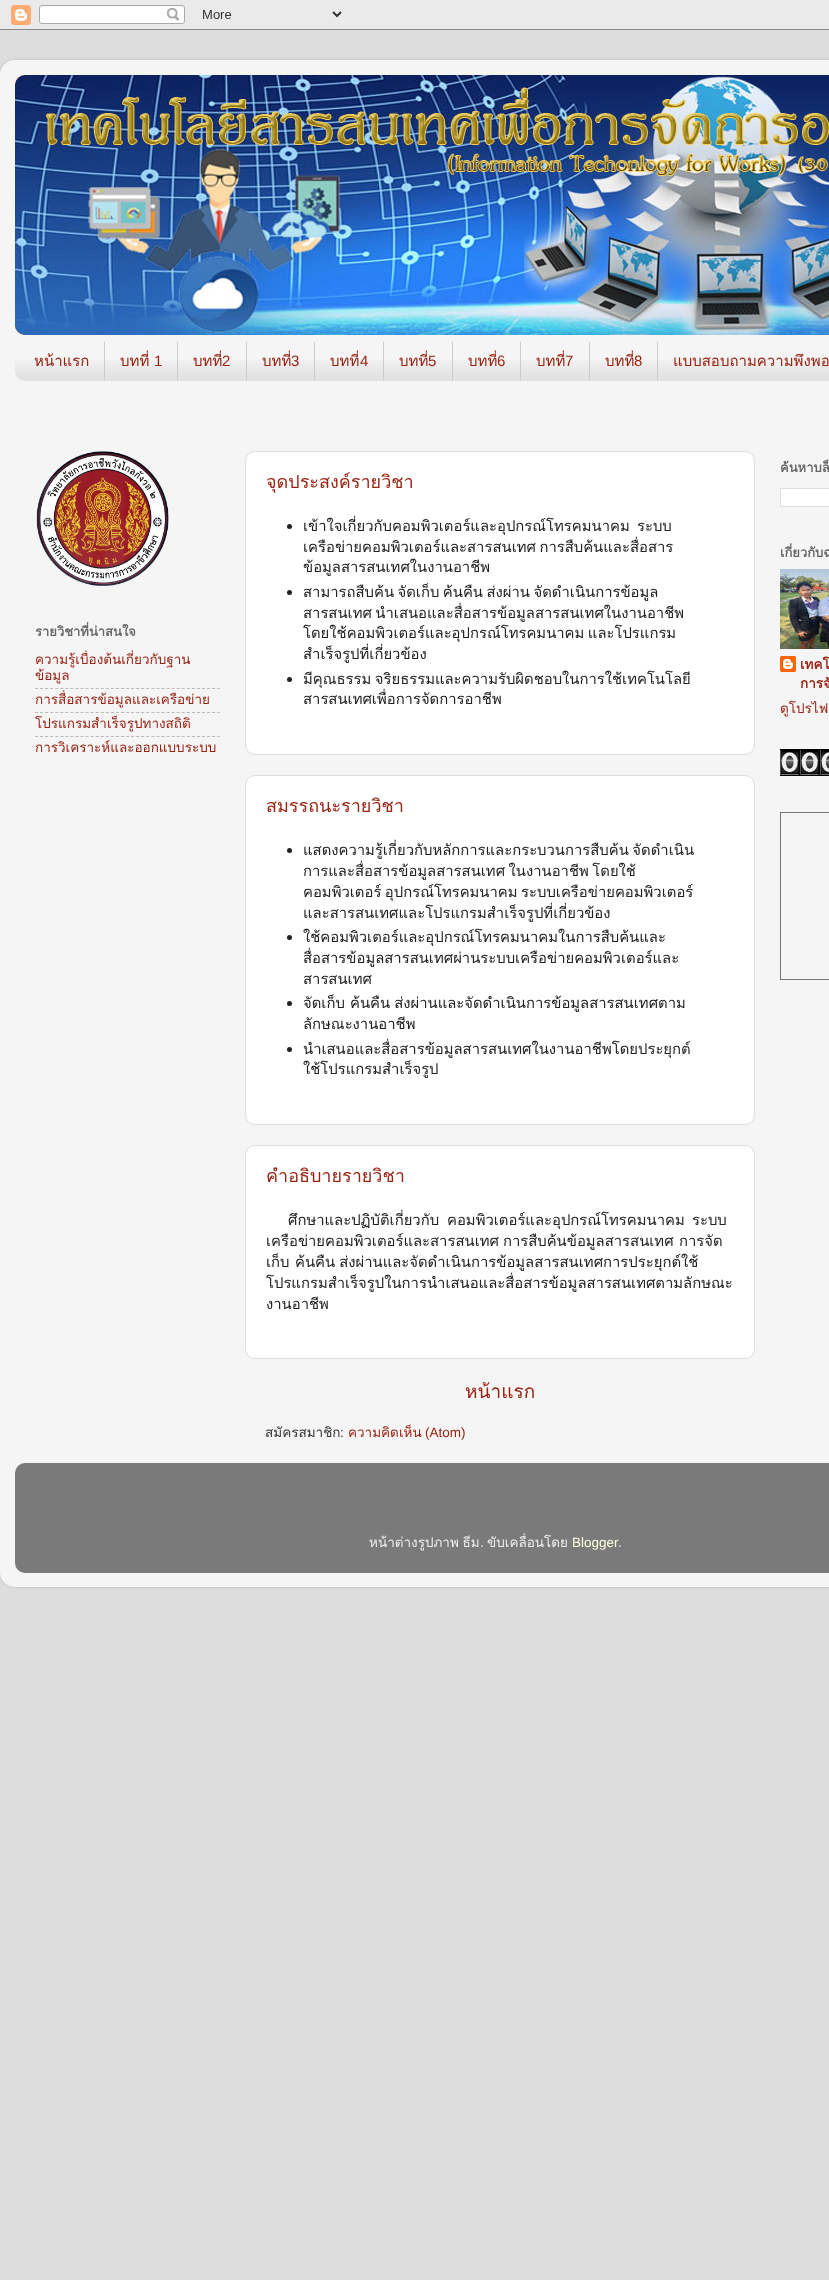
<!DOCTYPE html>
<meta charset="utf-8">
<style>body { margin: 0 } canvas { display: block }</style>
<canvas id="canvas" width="829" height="2280"></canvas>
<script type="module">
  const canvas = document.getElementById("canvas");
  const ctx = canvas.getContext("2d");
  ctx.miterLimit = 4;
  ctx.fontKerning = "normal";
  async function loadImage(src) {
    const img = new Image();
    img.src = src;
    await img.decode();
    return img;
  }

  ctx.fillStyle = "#dddddd";
  ctx.fillRect(0, 0, 829, 2280);
  ctx.drawImage(await loadImage("img1.png"), 0, 0, 829, 30);
  ctx.save();
  ctx.beginPath();
  ctx.moveTo(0, 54);
  ctx.lineTo(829, 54);
  ctx.lineTo(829, 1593);
  ctx.lineTo(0, 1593);
  ctx.closePath();
  ctx.moveTo(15, 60);
  ctx.lineTo(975, 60);
  ctx.bezierCurveTo(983.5, 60, 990, 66.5, 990, 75);
  ctx.lineTo(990, 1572);
  ctx.bezierCurveTo(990, 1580.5, 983.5, 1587, 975, 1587);
  ctx.lineTo(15, 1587);
  ctx.bezierCurveTo(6.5, 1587, 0, 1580.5, 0, 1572);
  ctx.lineTo(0, 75);
  ctx.bezierCurveTo(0, 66.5, 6.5, 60, 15, 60);
  ctx.closePath();
  ctx.clip("evenodd");
  ctx.fillStyle = "rgba(0, 0, 0, 0.15)";
  ctx.filter = "blur(1.5px)";
  ctx.beginPath();
  ctx.roundRect(0, 60, 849, 1527, 15);
  ctx.fill();
  ctx.filter = "none";
  ctx.restore();
  ctx.drawImage(await loadImage("img2.png"), 0, 60, 829, 1527);
  ctx.fillStyle = "#992211";
  ctx.beginPath();
  ctx.roundRect(15, 75, 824, 260, 10);
  ctx.fill();
  ctx.drawImage(await loadImage("img3.png"), 15, 75, 10, 10);
  ctx.drawImage(await loadImage("img4.png"), 15, 75, 814, 260);
  ctx.drawImage(await loadImage("img5.png"), 15, 360, 814, 21);
  ctx.fillStyle = "#cccccc";
  ctx.fillRect(104, 342, 1, 39);
  ctx.font = "15px Loma";
  ctx.fillStyle = "#992211";
  ctx.fillText("หน้าแรก", 34, 366);
  ctx.fillStyle = "#cccccc";
  ctx.fillRect(177, 342, 1, 39);
  ctx.fillStyle = "#992211";
  ctx.fillText("บทที่", 120, 366);
  ctx.font = "15px Liberation Sans";
  ctx.fillText("1", 154, 366);
  ctx.fillStyle = "#cccccc";
  ctx.fillRect(246, 342, 1, 39);
  ctx.font = "15px Loma";
  ctx.fillStyle = "#992211";
  ctx.fillText("บทที่", 193, 366);
  ctx.font = "15px Liberation Sans";
  ctx.fillText("2", 222, 366);
  ctx.fillStyle = "#cccccc";
  ctx.fillRect(314, 342, 1, 39);
  ctx.font = "15px Loma";
  ctx.fillStyle = "#992211";
  ctx.fillText("บทที่", 262, 366);
  ctx.font = "15px Liberation Sans";
  ctx.fillText("3", 291, 366);
  ctx.fillStyle = "#cccccc";
  ctx.fillRect(383, 342, 1, 39);
  ctx.font = "15px Loma";
  ctx.fillStyle = "#992211";
  ctx.fillText("บทที่", 330, 366);
  ctx.font = "15px Liberation Sans";
  ctx.fillText("4", 360, 366);
  ctx.fillStyle = "#cccccc";
  ctx.fillRect(452, 342, 1, 39);
  ctx.font = "15px Loma";
  ctx.fillStyle = "#992211";
  ctx.fillText("บทที่", 399, 366);
  ctx.font = "15px Liberation Sans";
  ctx.fillText("5", 428, 366);
  ctx.fillStyle = "#cccccc";
  ctx.fillRect(520, 342, 1, 39);
  ctx.font = "15px Loma";
  ctx.fillStyle = "#992211";
  ctx.fillText("บทที่", 468, 366);
  ctx.font = "15px Liberation Sans";
  ctx.fillText("6", 497, 366);
  ctx.fillStyle = "#cccccc";
  ctx.fillRect(589, 342, 1, 39);
  ctx.font = "15px Loma";
  ctx.fillStyle = "#992211";
  ctx.fillText("บทที่", 536, 366);
  ctx.font = "15px Liberation Sans";
  ctx.fillText("7", 565, 366);
  ctx.fillStyle = "#cccccc";
  ctx.fillRect(657, 342, 1, 39);
  ctx.font = "15px Loma";
  ctx.fillStyle = "#992211";
  ctx.fillText("บทที่", 605, 366);
  ctx.font = "15px Liberation Sans";
  ctx.fillText("8", 634, 366);
  ctx.font = "15px Loma";
  ctx.fillText("แบบสอบถามความพึงพอ", 673, 366);
  ctx.drawImage(await loadImage("img6.png"), 36, 451, 133, 135);
  ctx.font = "bold 13px Loma";
  ctx.fillStyle = "#666666";
  ctx.fillText("รายวิชาที่น่าสนใจ", 35, 636);
  ctx.font = "13.5px Loma";
  ctx.fillStyle = "#992211";
  ctx.fillText("ความรู้เบื่องต้นเกี่ยวกับฐาน", 35, 664);
  ctx.fillText("ข้อมูล", 35, 680);
  ctx.beginPath();
  ctx.moveTo(35, 688.5);
  ctx.lineTo(220, 688.5);
  ctx.strokeStyle = "#bababa";
  ctx.setLineDash([3, 2.06]);
  ctx.stroke();
  ctx.fillText("การสื่อสารข้อมูลและเครือข่าย", 35, 704);
  ctx.beginPath();
  ctx.moveTo(35, 712.5);
  ctx.lineTo(220, 712.5);
  ctx.stroke();
  ctx.fillText("โปรแกรมสำเร็จรูปทางสถิติ", 35, 728);
  ctx.beginPath();
  ctx.moveTo(35, 736.5);
  ctx.lineTo(220, 736.5);
  ctx.stroke();
  ctx.fillText("การวิเคราะห์และออกแบบระบบ", 35, 752);
  ctx.fillStyle = "#ffffff";
  ctx.beginPath();
  ctx.roundRect(245.5, 451.5, 509, 303, 9.5);
  ctx.fill();
  ctx.strokeStyle = "#dddddd";
  ctx.setLineDash([]);
  ctx.stroke();
  ctx.font = "18px Loma";
  ctx.fillStyle = "#992211";
  ctx.fillText("จุดประสงค์รายวิชา", 266, 488);
  ctx.fillStyle = "#212121";
  ctx.beginPath();
  ctx.arc(289.5, 526.5, 2.5, 0, Math.PI * 2);
  ctx.fill();
  ctx.font = "14.85px Loma";
  ctx.fillText("เข้าใจเกี่ยวกับคอมพิวเตอร์และอุปกรณ์โทรคมนาคม", 303, 531);
  ctx.fillText("ระบบ", 637, 531);
  ctx.wordSpacing = "-1.5px";
  ctx.fillText("เครือข่ายคอมพิวเตอร์และสารสนเทศ การสืบค้นและสื่อสาร", 303, 552);
  ctx.wordSpacing = "0px";
  ctx.fillText("ข้อมูลสารสนเทศในงานอาชีพ", 303, 572);
  ctx.beginPath();
  ctx.arc(289.5, 592.5, 2.5, 0, Math.PI * 2);
  ctx.fill();
  ctx.wordSpacing = "-1.5px";
  ctx.fillText("สามารถสืบค้น จัดเก็บ ค้นคืน ส่งผ่าน จัดดำเนินการข้อมูล", 303, 597);
  ctx.fillText("สารสนเทศ นำเสนอและสื่อสารข้อมูลสารสนเทศในงานอาชีพ", 303, 618);
  ctx.fillText("โดยใช้คอมพิวเตอร์และอุปกรณ์โทรคมนาคม และโปรแกรม", 303, 638);
  ctx.wordSpacing = "0px";
  ctx.fillText("สำเร็จรูปที่เกี่ยวข้อง", 303, 659);
  ctx.beginPath();
  ctx.arc(289.5, 679.5, 2.5, 0, Math.PI * 2);
  ctx.fill();
  ctx.wordSpacing = "-1.5px";
  ctx.fillText("มีคุณธรรม จริยธรรมและความรับผิดชอบในการใช้เทคโนโลยี", 303, 684);
  ctx.wordSpacing = "0px";
  ctx.fillText("สารสนเทศเพื่อการจัดการอาชีพ", 303, 704);
  ctx.fillStyle = "#ffffff";
  ctx.beginPath();
  ctx.roundRect(245.5, 775.5, 509, 349, 9.5);
  ctx.fill();
  ctx.stroke();
  ctx.font = "18px Loma";
  ctx.fillStyle = "#992211";
  ctx.fillText("สมรรถนะรายวิชา", 266, 812);
  ctx.fillStyle = "#212121";
  ctx.beginPath();
  ctx.arc(289.5, 850.5, 2.5, 0, Math.PI * 2);
  ctx.fill();
  ctx.wordSpacing = "-1.5px";
  ctx.font = "14.85px Loma";
  ctx.fillText("แสดงความรู้เกี่ยวกับหลักการและกระบวนการสืบค้น จัดดำเนิน", 303, 855);
  ctx.fillText("การและสื่อสารข้อมูลสารสนเทศ ในงานอาชีพ โดยใช้", 303, 876);
  ctx.fillText("คอมพิวเตอร์ อุปกรณ์โทรคมนาคม ระบบเครือข่ายคอมพิวเตอร์", 303, 897);
  ctx.wordSpacing = "0px";
  ctx.fillText("และสารสนเทศและโปรแกรมสำเร็จรูปที่เกี่ยวข้อง", 303, 918);
  ctx.beginPath();
  ctx.arc(289.5, 937.5, 2.5, 0, Math.PI * 2);
  ctx.fill();
  ctx.fillText("ใช้คอมพิวเตอร์และอุปกรณ์โทรคมนาคมในการสืบค้นและ", 303, 942);
  ctx.fillText("สื่อสารข้อมูลสารสนเทศผ่านระบบเครือข่ายคอมพิวเตอร์และ", 303, 963);
  ctx.fillText("สารสนเทศ", 303, 984);
  ctx.beginPath();
  ctx.arc(289.5, 1003.5, 2.5, 0, Math.PI * 2);
  ctx.fill();
  ctx.fillText("จัดเก็บ", 303, 1008);
  ctx.wordSpacing = "-1px";
  ctx.fillText("ค้นคืน ส่งผ่านและจัดดำเนินการข้อมูลสารสนเทศตาม", 350, 1008);
  ctx.wordSpacing = "0px";
  ctx.fillText("ลักษณะงานอาชีพ", 303, 1029);
  ctx.beginPath();
  ctx.arc(289.5, 1049.5, 2.5, 0, Math.PI * 2);
  ctx.fill();
  ctx.fillText("นำเสนอและสื่อสารข้อมูลสารสนเทศในงานอาชีพโดยประยุกต์", 303, 1054);
  ctx.fillText("ใช้โปรแกรมสำเร็จรูป", 303, 1074);
  ctx.fillStyle = "#ffffff";
  ctx.beginPath();
  ctx.roundRect(245.5, 1145.5, 509, 213, 9.5);
  ctx.fill();
  ctx.stroke();
  ctx.font = "18px Loma";
  ctx.fillStyle = "#992211";
  ctx.fillText("คำอธิบายรายวิชา", 266, 1182);
  ctx.font = "14.85px Loma";
  ctx.fillStyle = "#212121";
  ctx.fillText("ศึกษาและปฏิบัติเกี่ยวกับ", 288, 1225);
  ctx.fillText("คอมพิวเตอร์และอุปกรณ์โทรคมนาคม", 447, 1225);
  ctx.fillText("ระบบ", 692, 1225);
  ctx.wordSpacing = "-1px";
  ctx.fillText("เครือข่ายคอมพิวเตอร์และสารสนเทศ การสืบค้นข้อมูลสารสนเทศ", 266, 1246);
  ctx.wordSpacing = "0px";
  ctx.fillText("การจัด", 679, 1246);
  ctx.fillText("เก็บ", 266, 1267);
  ctx.wordSpacing = "-1px";
  ctx.fillText("ค้นคืน ส่งผ่านและจัดดำเนินการข้อมูลสารสนเทศการประยุกต์ใช้", 295, 1267);
  ctx.wordSpacing = "0px";
  ctx.fillText("โปรแกรมสำเร็จรูปในการนำเสนอและสื่อสารข้อมูลสารสนเทศตามลักษณะ", 266, 1288);
  ctx.fillText("งานอาชีพ", 266, 1309);
  ctx.font = "19px Loma";
  ctx.fillStyle = "#992211";
  ctx.fillText("หน้าแรก", 465, 1398);
  ctx.font = "13.5px Loma";
  ctx.fillStyle = "#333333";
  ctx.fillText("สมัครสมาชิก", 265, 1437);
  ctx.font = "13.5px Liberation Sans";
  ctx.fillText(":", 340, 1437);
  ctx.font = "13.5px Loma";
  ctx.fillStyle = "#992211";
  ctx.fillText("ความคิดเห็น", 348, 1437);
  ctx.font = "13.5px Liberation Sans";
  ctx.fillText("(Atom)", 425, 1437);
  ctx.font = "bold 13px Loma";
  ctx.fillStyle = "#666666";
  ctx.fillText("ค้นหาบล็", 780, 472);
  ctx.fillStyle = "#ffffff";
  ctx.beginPath();
  ctx.rect(780.5, 488.5, 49, 18);
  ctx.fill();
  ctx.stroke();
  ctx.fillStyle = "#666666";
  ctx.fillText("เกี่ยวกับฉ", 780, 557);
  ctx.drawImage(await loadImage("img7.png"), 780, 569, 49, 80);
  ctx.drawImage(await loadImage("img8.png"), 780, 656, 16, 16);
  ctx.font = "bold 13.5px Loma";
  ctx.fillStyle = "#992211";
  ctx.fillText("เทคโ", 800, 669);
  ctx.fillText("การจั", 800, 688);
  ctx.font = "13.5px Loma";
  ctx.fillText("ดูโปรไฟ", 780, 713);
  ctx.drawImage(await loadImage("img9.png"), 780, 749, 20, 27);
  ctx.drawImage(await loadImage("img9.png"), 800, 749, 20, 27);
  ctx.drawImage(await loadImage("img10.png"), 820, 749, 9, 27);
  ctx.strokeStyle = "#777777";
  ctx.strokeRect(780.5, 812.5, 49, 167);
  ctx.drawImage(await loadImage("img11.png"), 15, 1463, 814, 110);
  ctx.wordSpacing = "-1px";
  ctx.fillStyle = "#eeeeee";
  ctx.fillText("หน้าต่างรูปภาพ ธีม", 369, 1547);
  ctx.wordSpacing = "0px";
  ctx.font = "13.5px Liberation Sans";
  ctx.fillText(".", 480, 1547);
  ctx.font = "13.5px Loma";
  ctx.fillText("ขับเคลื่อนโดย", 487, 1547);
  ctx.font = "13.5px Liberation Sans";
  ctx.fillStyle = "#ffffdd";
  ctx.fillText("Blogger", 572, 1547);
  ctx.fillStyle = "#eeeeee";
  ctx.fillText(".", 618, 1547);
</script>
